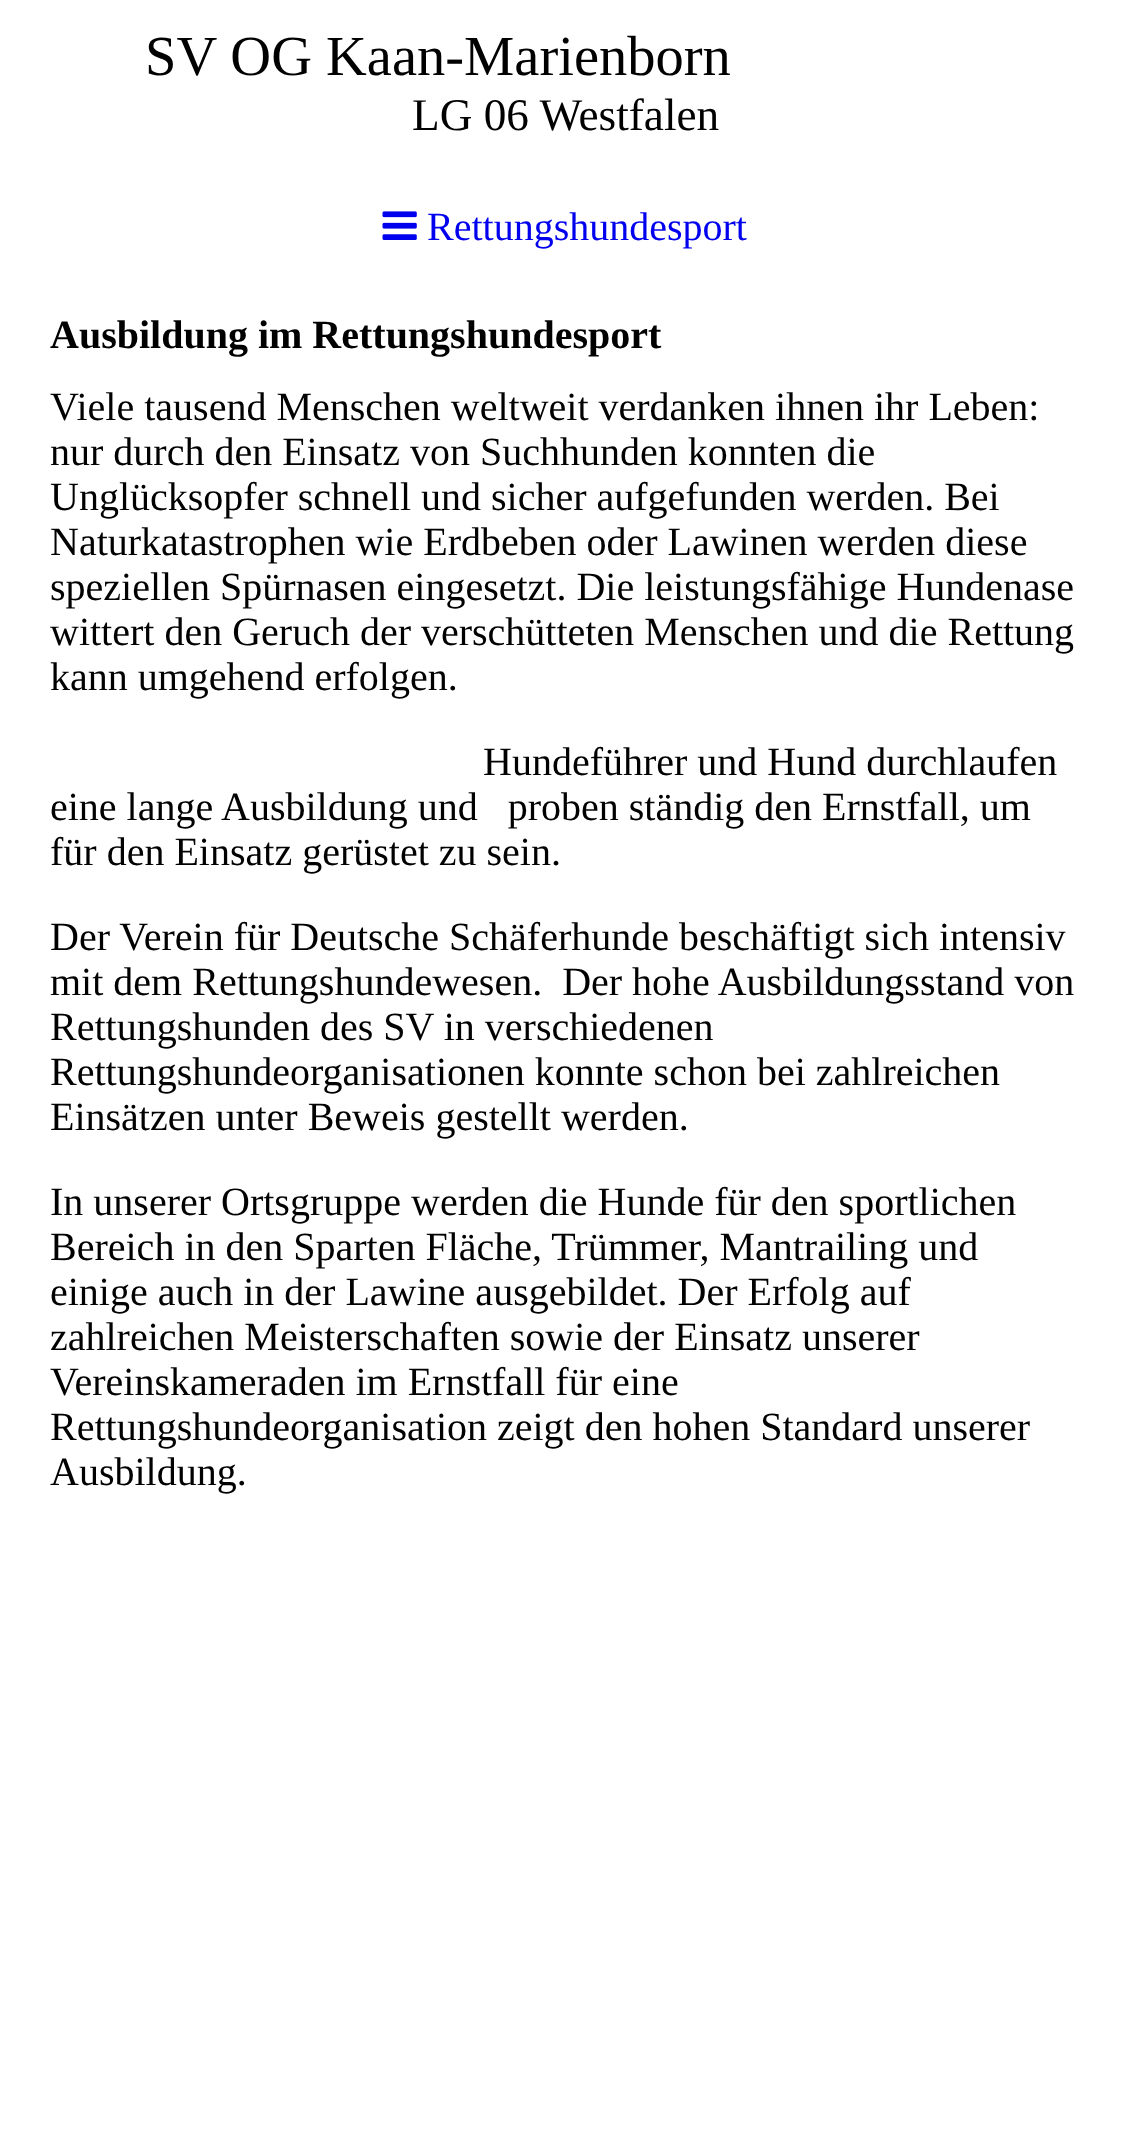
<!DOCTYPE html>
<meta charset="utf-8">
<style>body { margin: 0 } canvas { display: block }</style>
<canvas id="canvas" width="1128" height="2149"></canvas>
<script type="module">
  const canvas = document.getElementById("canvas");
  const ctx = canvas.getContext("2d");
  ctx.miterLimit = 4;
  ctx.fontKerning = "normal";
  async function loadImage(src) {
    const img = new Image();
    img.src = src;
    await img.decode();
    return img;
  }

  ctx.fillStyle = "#ffffff";
  ctx.fillRect(0, 0, 1128, 2149);
  ctx.font = "56.5px Liberation Serif";
  ctx.fillStyle = "#000000";
  ctx.fillText("SV OG Kaan-Marienborn", 145, 75);
  ctx.font = "45.25px Liberation Serif";
  ctx.fillText("LG 06 Westfalen", 412, 130);
  ctx.drawImage(await loadImage("img1.png"), 382, 211, 35, 29);
  ctx.font = "40px Liberation Serif";
  ctx.fillStyle = "#0000ee";
  ctx.fillText("Rettungshundesport", 427, 240);
  ctx.font = "bold 40px Liberation Serif";
  ctx.fillStyle = "#000000";
  ctx.fillText("Ausbildung im Rettungshundesport", 50, 348);
  ctx.font = "40px Liberation Serif";
  ctx.fillText("Viele tausend Menschen weltweit verdanken ihnen ihr Leben:", 50, 420);
  ctx.fillText("nur durch den Einsatz von Suchhunden konnten die", 50, 465);
  ctx.fillText("Unglücksopfer schnell und sicher aufgefunden werden. Bei", 50, 510);
  ctx.fillText("Naturkatastrophen wie Erdbeben oder Lawinen werden diese", 50, 555);
  ctx.fillText("speziellen Spürnasen eingesetzt. Die leistungsfähige Hundenase", 50, 600);
  ctx.fillText("wittert den Geruch der verschütteten Menschen und die Rettung", 50, 645);
  ctx.fillText("kann umgehend erfolgen.", 50, 690);
  ctx.fillText("Hundeführer und Hund durchlaufen", 483, 775);
  ctx.fillText("eine lange Ausbildung und   proben ständig den Ernstfall, um", 50, 820);
  ctx.fillText("für den Einsatz gerüstet zu sein.", 50, 865);
  ctx.fillText("Der Verein für Deutsche Schäferhunde beschäftigt sich intensiv", 50, 950);
  ctx.fillText("mit dem Rettungshundewesen.  Der hohe Ausbildungsstand von", 50, 995);
  ctx.fillText("Rettungshunden des SV in verschiedenen", 50, 1040);
  ctx.fillText("Rettungshundeorganisationen konnte schon bei zahlreichen", 50, 1085);
  ctx.fillText("Einsätzen unter Beweis gestellt werden.", 50, 1130);
  ctx.fillText("In unserer Ortsgruppe werden die Hunde für den sportlichen", 50, 1215);
  ctx.fillText("Bereich in den Sparten Fläche, Trümmer, Mantrailing und", 50, 1260);
  ctx.fillText("einige auch in der Lawine ausgebildet. Der Erfolg auf", 50, 1305);
  ctx.fillText("zahlreichen Meisterschaften sowie der Einsatz unserer", 50, 1350);
  ctx.fillText("Vereinskameraden im Ernstfall für eine", 50, 1395);
  ctx.fillText("Rettungshundeorganisation zeigt den hohen Standard unserer", 50, 1440);
  ctx.fillText("Ausbildung.", 50, 1485);
</script>
